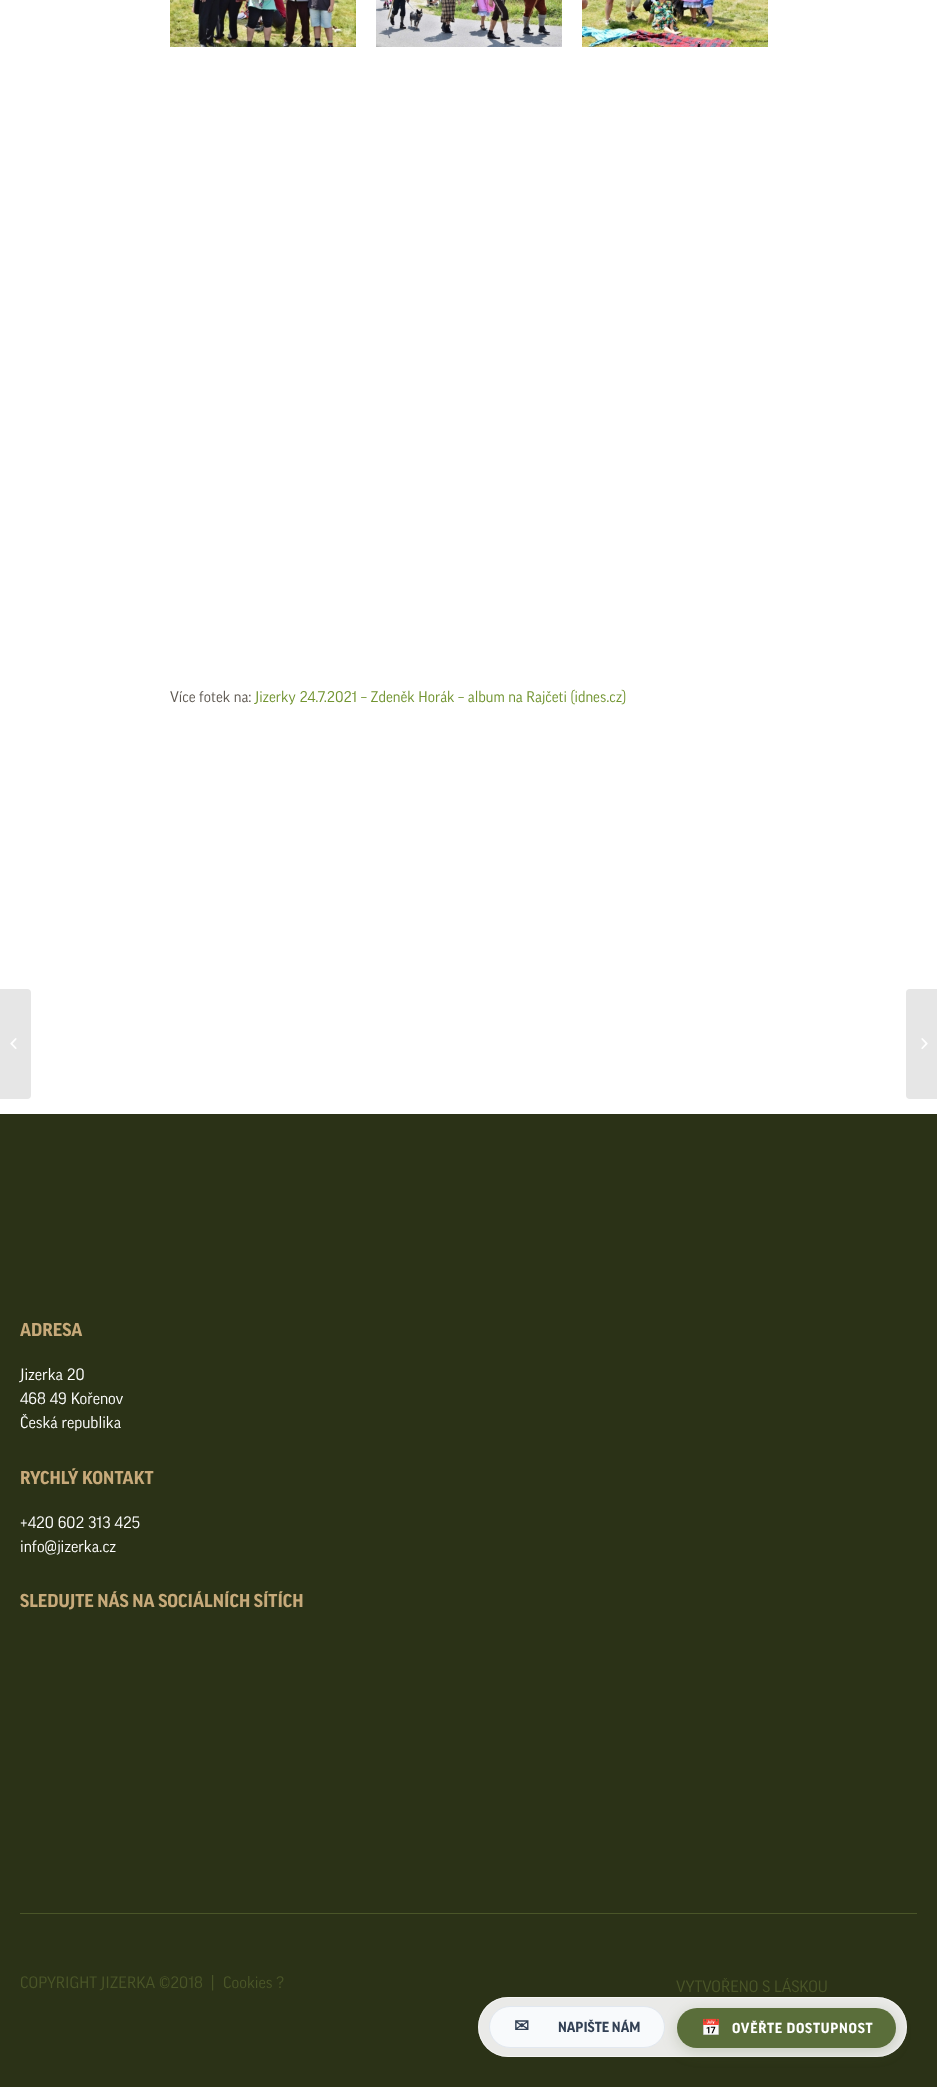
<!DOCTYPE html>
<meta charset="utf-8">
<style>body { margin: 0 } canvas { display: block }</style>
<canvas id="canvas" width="937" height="2087"></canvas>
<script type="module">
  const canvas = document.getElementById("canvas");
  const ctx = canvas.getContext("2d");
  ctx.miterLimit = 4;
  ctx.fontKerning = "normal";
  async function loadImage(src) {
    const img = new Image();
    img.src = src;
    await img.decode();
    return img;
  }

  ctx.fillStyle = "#ffffff";
  ctx.fillRect(0, 0, 937, 2087);
  ctx.fillStyle = "#e6e6e6";
  ctx.beginPath();
  ctx.roundRect(0, 989, 31, 110, [0, 4, 4, 0]);
  ctx.fill();
  ctx.drawImage(await loadImage("img1.png"), 10, 1038, 7, 11);
  ctx.drawImage(await loadImage("img2.png"), 170, 0, 186, 47);
  ctx.drawImage(await loadImage("img3.png"), 376, 0, 186, 47);
  ctx.drawImage(await loadImage("img4.png"), 582, 0, 186, 47);
  ctx.font = "15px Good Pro";
  ctx.fillStyle = "#5f5952";
  ctx.fillText("Více fotek na:", 170, 702);
  ctx.fillStyle = "#719430";
  ctx.fillText("Jizerky 24.7.2021 – Zdeněk Horák – album na Rajčeti (idnes.cz)", 255, 702);
  ctx.fillStyle = "#2b3217";
  ctx.fillRect(0, 1114, 937, 973);
  ctx.font = "bold 18px Good Pro";
  ctx.fillStyle = "#c7aa7a";
  ctx.fillText("ADRESA", 20, 1336);
  ctx.font = "16px Good Pro";
  ctx.fillStyle = "#ffffff";
  ctx.fillText("Jizerka 20", 20, 1380);
  ctx.fillText("468 49 Kořenov", 20, 1404);
  ctx.fillText("Česká republika", 20, 1428);
  ctx.font = "bold 18px Good Pro";
  ctx.fillStyle = "#c7aa7a";
  ctx.fillText("RYCHLÝ KONTAKT", 20, 1484);
  ctx.font = "16px Good Pro";
  ctx.fillStyle = "#ffffff";
  ctx.fillText("+420 602 313 425", 20, 1528);
  ctx.fillText("info@jizerka.cz", 20, 1552);
  ctx.font = "bold 18px Good Pro";
  ctx.fillStyle = "#c7aa7a";
  ctx.fillText("SLEDUJTE NÁS NA SOCIÁLNÍCH SÍTÍCH", 20, 1607);
  ctx.fillStyle = "#4a5528";
  ctx.fillRect(20, 1913, 897, 1);
  ctx.font = "16px Good Pro";
  ctx.fillText("COPYRIGHT JIZERKA ©2018  |", 20, 1988);
  ctx.fillText("Cookies ?", 223, 1988);
  ctx.fillText("VYTVOŘENO S LÁSKOU", 676, 1992);
  ctx.fillStyle = "#e6e6e6";
  ctx.beginPath();
  ctx.roundRect(906, 989, 31, 110, [4, 0, 0, 4]);
  ctx.fill();
  ctx.drawImage(await loadImage("img5.png"), 921, 1038, 7, 11);
  ctx.fillStyle = "#eaeae8";
  ctx.beginPath();
  ctx.roundRect(478, 1997, 429, 60, 30);
  ctx.fill();
  ctx.beginPath();
  ctx.roundRect(478.5, 1997.5, 428, 59, 29.5);
  ctx.strokeStyle = "rgba(255, 255, 255, 0.5)";
  ctx.stroke();
  ctx.fillStyle = "#f8fafc";
  ctx.beginPath();
  ctx.roundRect(489.5, 2006.5, 175, 41, 20.5);
  ctx.fill();
  ctx.strokeStyle = "#e2e8f0";
  ctx.stroke();
  ctx.font = "bold 18px DejaVu Sans";
  ctx.fillStyle = "#334155";
  ctx.fillText("✉", 514, 2032);
  ctx.font = "bold 14px Good Pro";
  ctx.fillText("NAPIŠTE NÁM", 558, 2032);
  ctx.fillStyle = "rgba(90, 110, 58, 0.25)";
  ctx.filter = "blur(7.5px)";
  ctx.beginPath();
  ctx.roundRect(677, 2012, 219, 40, 20);
  ctx.fill();
  ctx.filter = "none";
  ctx.fillStyle = "#5a6e3a";
  ctx.beginPath();
  ctx.roundRect(677, 2008, 219, 40, 20);
  ctx.fill();
  ctx.letterSpacing = "0.75px";
  ctx.font = "bold 16px Noto Color Emoji";
  ctx.fillStyle = "#ffffff";
  ctx.fillText("📅", 701, 2033);
  ctx.font = "bold 14px Good Pro";
  ctx.fillText("OVĚŘTE DOSTUPNOST", 732, 2033);
</script>
